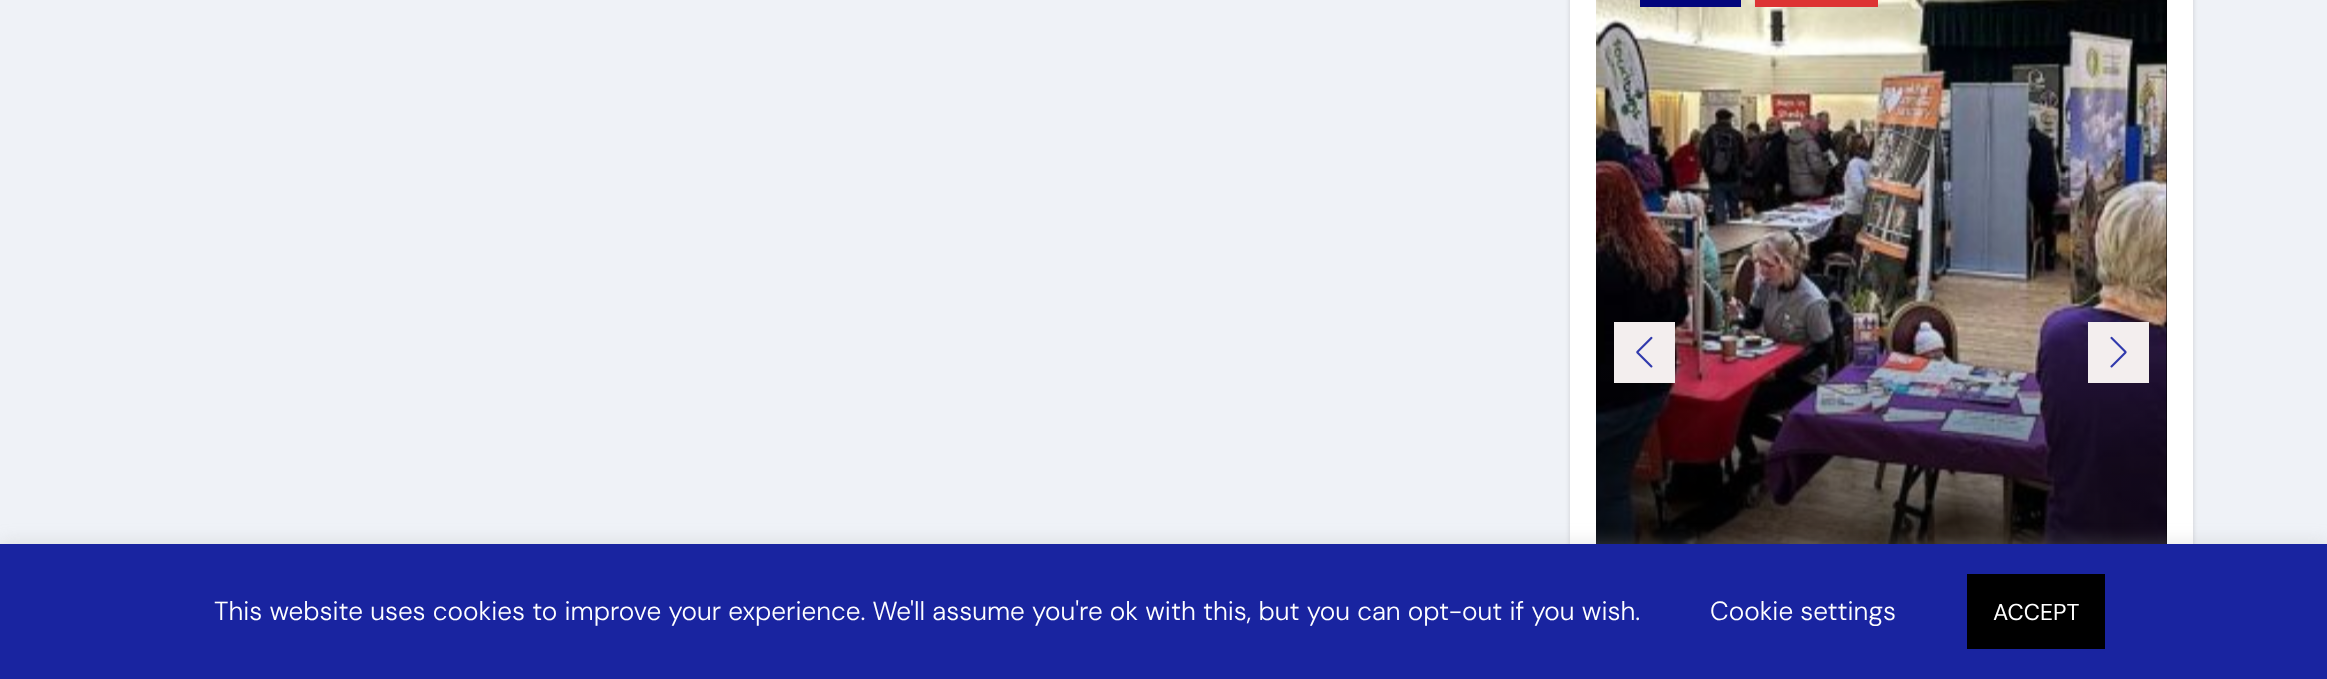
<!DOCTYPE html>
<meta charset="utf-8">
<style>body { margin: 0 } canvas { display: block }</style>
<canvas id="canvas" width="2327" height="679"></canvas>
<script type="module">
  const canvas = document.getElementById("canvas");
  const ctx = canvas.getContext("2d");
  ctx.miterLimit = 4;
  ctx.fontKerning = "normal";
  async function loadImage(src) {
    const img = new Image();
    img.src = src;
    await img.decode();
    return img;
  }
  let gradient;

  ctx.fillStyle = "#eff2f7";
  ctx.fillRect(0, 0, 2327, 679);
  ctx.fillStyle = "rgba(0, 0, 0, 0.15)";
  ctx.filter = "blur(2.5px)";
  ctx.beginPath();
  ctx.rect(1570, -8, 623, 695);
  ctx.fill();
  ctx.filter = "none";
  ctx.fillStyle = "#ffffff";
  ctx.fillRect(1570, 0, 623, 544);
  ctx.fillStyle = "#000000";
  ctx.fillRect(2166, 0, 1, 544);
  ctx.drawImage(await loadImage("img1.png"), 1596, 0, 571, 544);
  ctx.fillStyle = "#02047c";
  ctx.fillRect(1640, 0, 101, 7);
  ctx.fillStyle = "#dd3333";
  ctx.fillRect(1755, 0, 123, 7);
  gradient = ctx.createLinearGradient(1881, -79, 1881, 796);
  gradient.addColorStop(0, "rgba(0, 0, 0, 0)");
  gradient.addColorStop(0.45, "rgba(0, 0, 0, 0)");
  gradient.addColorStop(0.6, "rgba(0, 0, 0, 0.4)");
  gradient.addColorStop(1, "rgba(0, 0, 0, 0.85)");
  ctx.fillStyle = gradient;
  ctx.fillRect(1596, 322, 571, 222);
  ctx.fillStyle = "#f3eeee";
  ctx.fillRect(1614, 322, 61, 61);
  ctx.drawImage(await loadImage("img2.png"), 1636, 336, 17, 32);
  ctx.fillRect(2088, 322, 61, 61);
  ctx.drawImage(await loadImage("img3.png"), 2110, 336, 17, 32);
  ctx.fillStyle = "rgba(172, 171, 171, 0.3)";
  ctx.filter = "blur(9px)";
  ctx.beginPath();
  ctx.rect(0, 543, 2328, 134);
  ctx.fill();
  ctx.filter = "none";
  ctx.fillStyle = "#1924a0";
  ctx.fillRect(0, 544, 2327, 135);
  ctx.font = "300 26.25px DM Sans";
  ctx.fillStyle = "#ffffff";
  ctx.fillText("This website uses cookies to improve your experience. We'll assume you're ok with this, but you can opt-out if you wish.", 214, 620);
  ctx.fillText("Cookie settings", 1710, 620);
  ctx.fillStyle = "#000000";
  ctx.fillRect(1967, 574, 138, 75);
  ctx.font = "23px DM Sans";
  ctx.fillStyle = "#ffffff";
  ctx.fillText("ACCEPT", 1993, 620);
</script>
